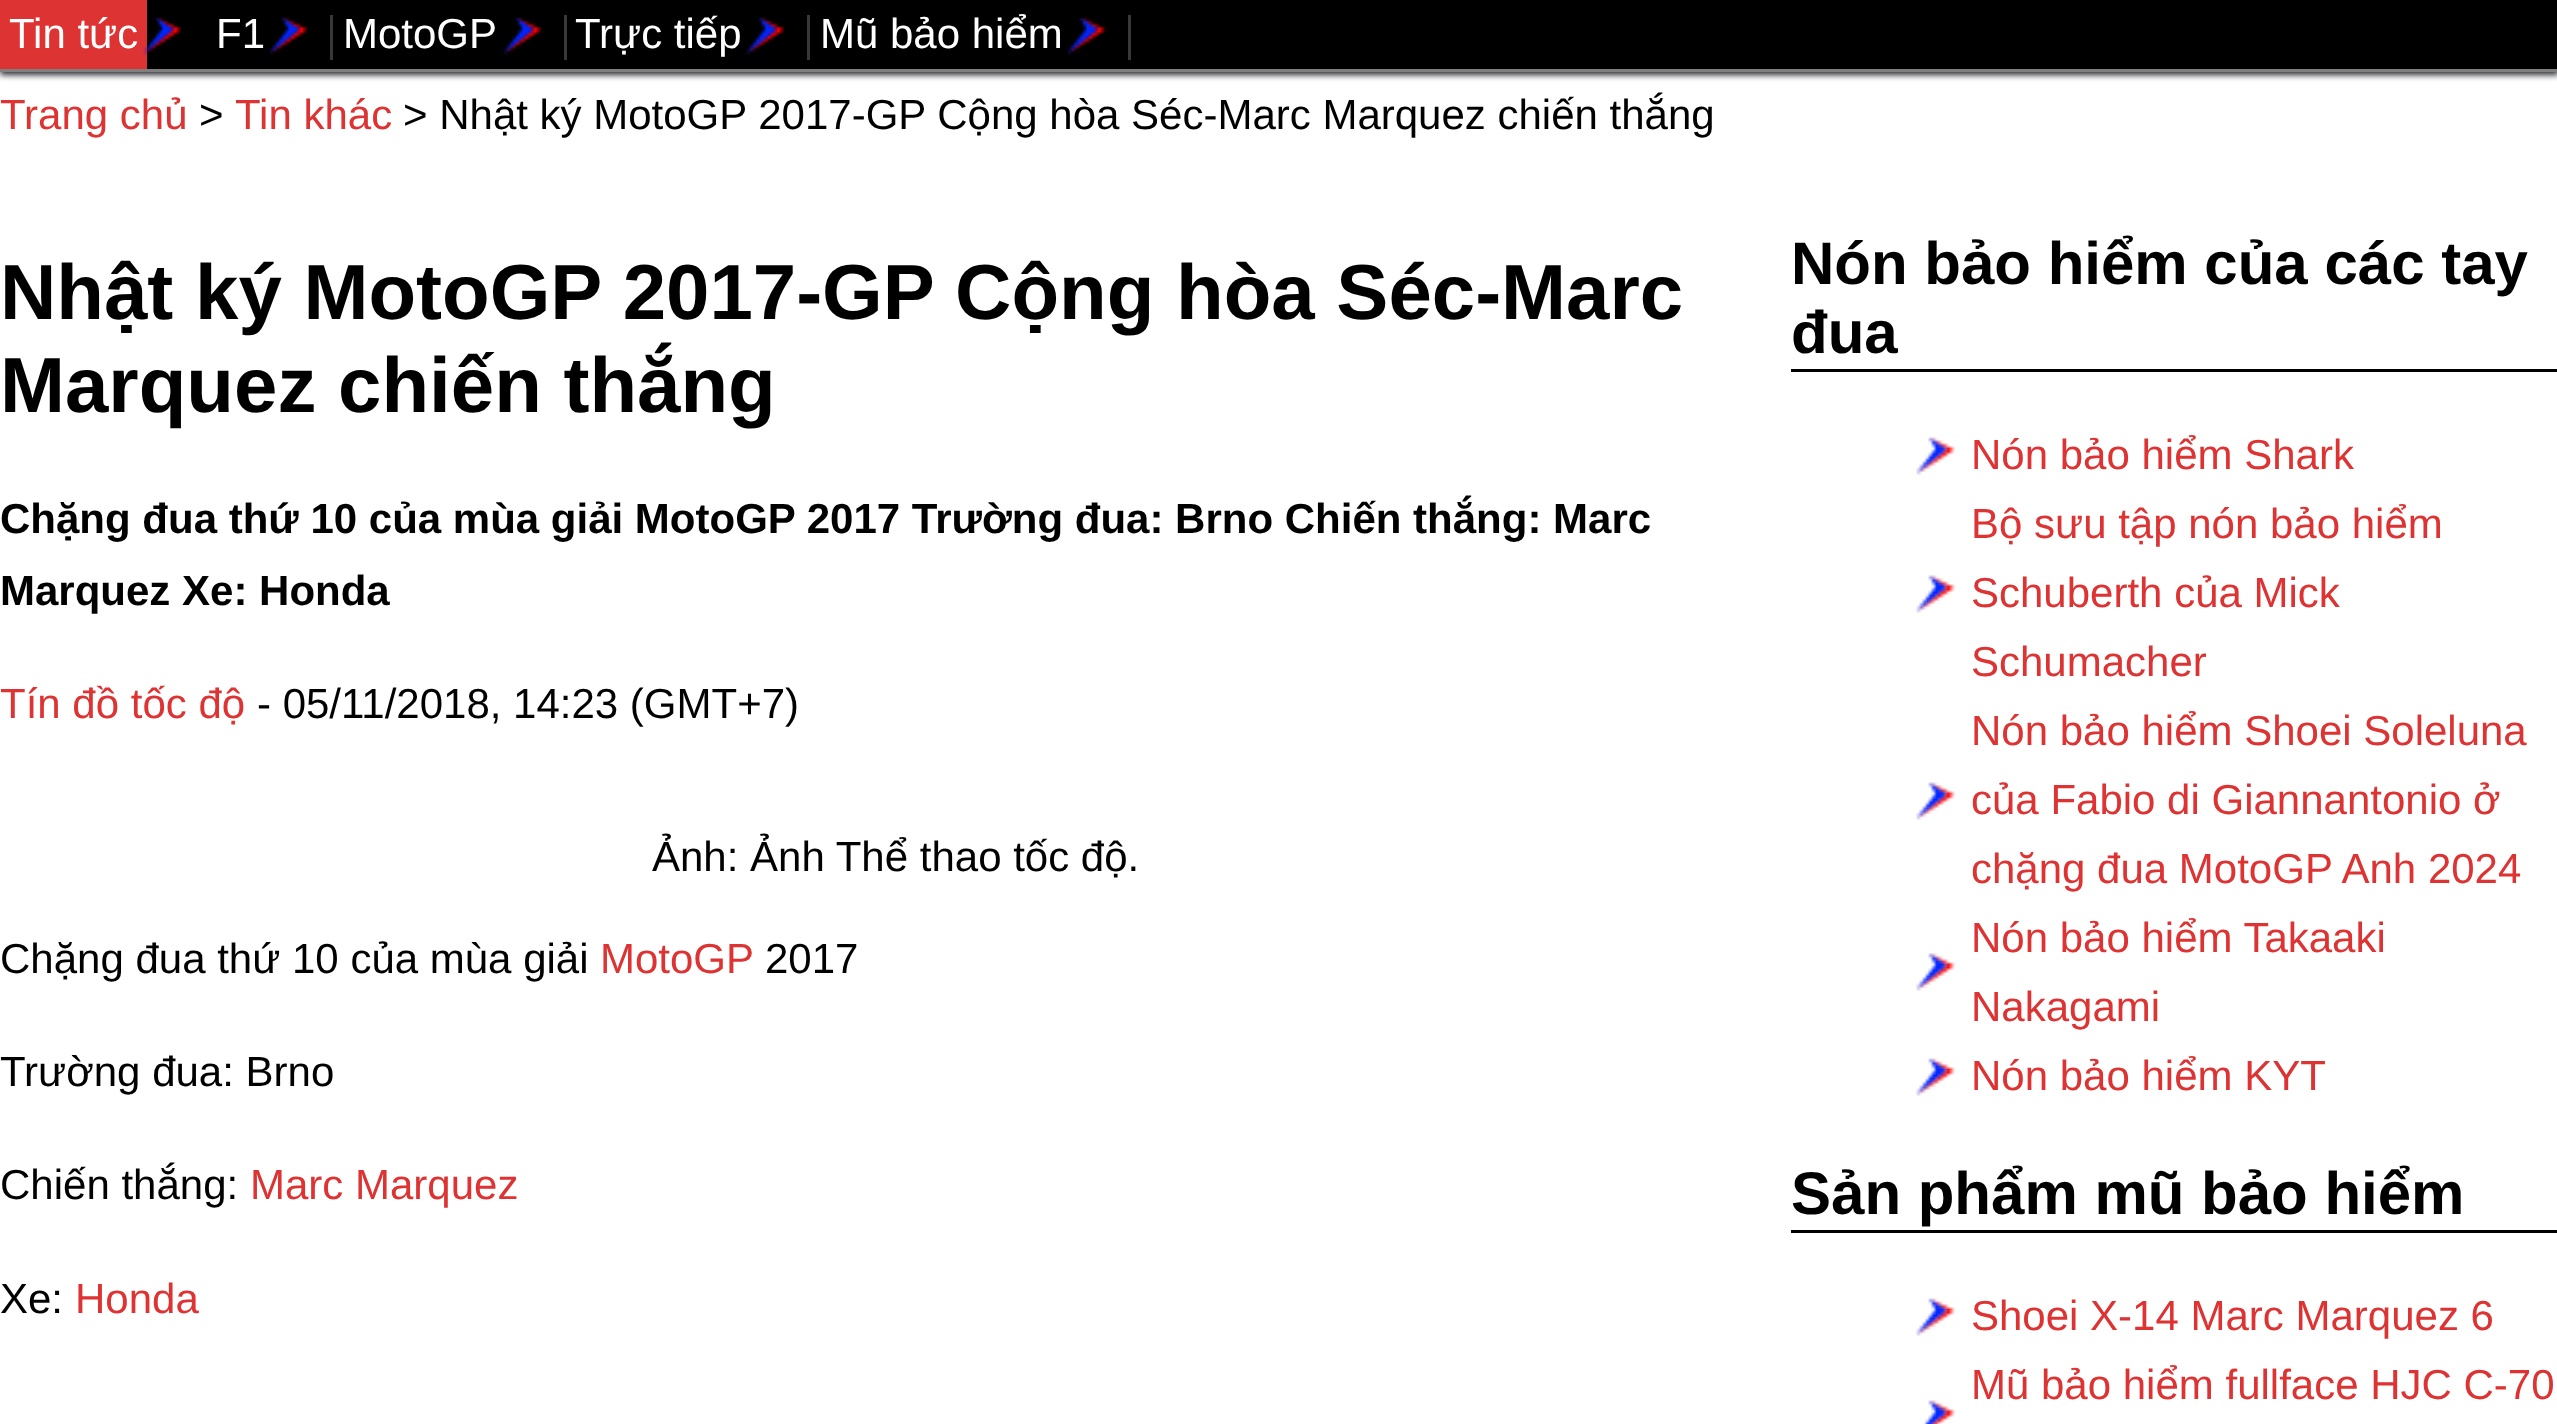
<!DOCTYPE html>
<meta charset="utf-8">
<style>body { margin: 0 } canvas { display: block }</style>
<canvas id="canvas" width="2557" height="1424"></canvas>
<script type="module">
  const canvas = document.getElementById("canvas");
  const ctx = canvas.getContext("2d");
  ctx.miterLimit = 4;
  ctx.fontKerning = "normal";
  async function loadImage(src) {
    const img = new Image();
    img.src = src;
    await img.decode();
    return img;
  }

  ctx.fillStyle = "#ffffff";
  ctx.fillRect(0, 0, 2557, 1424);
  ctx.fillStyle = "#292a30";
  ctx.filter = "blur(3px)";
  ctx.beginPath();
  ctx.rect(0, 3, 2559, 72);
  ctx.fill();
  ctx.filter = "none";
  ctx.fillStyle = "#000000";
  ctx.fillRect(147, 0, 2410, 69);
  ctx.fillStyle = "#7f7f7f";
  ctx.fillRect(0, 69, 2557, 3);
  ctx.fillStyle = "#dd3333";
  ctx.fillRect(0, 0, 147, 69);
  ctx.font = "42px Liberation Sans";
  ctx.fillStyle = "#ffffff";
  ctx.fillText("Tin tức", 9, 48);
  ctx.drawImage(await loadImage("img1.png"), 142, 17, 41, 38);
  ctx.fillText("F1", 216, 48);
  ctx.drawImage(await loadImage("img2.png"), 268, 17, 41, 38);
  ctx.fillStyle = "#383838";
  ctx.fillRect(330, 15, 3, 45);
  ctx.fillStyle = "#ffffff";
  ctx.fillText("MotoGP", 343, 48);
  ctx.drawImage(await loadImage("img2.png"), 502, 17, 41, 38);
  ctx.fillStyle = "#383838";
  ctx.fillRect(564, 15, 3, 45);
  ctx.fillStyle = "#ffffff";
  ctx.fillText("Trực tiếp", 575, 48);
  ctx.drawImage(await loadImage("img2.png"), 745, 17, 41, 38);
  ctx.fillStyle = "#383838";
  ctx.fillRect(807, 15, 3, 45);
  ctx.fillStyle = "#ffffff";
  ctx.fillText("Mũ bảo hiểm", 820, 48);
  ctx.drawImage(await loadImage("img2.png"), 1066, 17, 41, 38);
  ctx.fillStyle = "#383838";
  ctx.fillRect(1128, 15, 3, 45);
  ctx.fillStyle = "#dd3333";
  ctx.fillText("Trang chủ", 0, 129);
  ctx.fillStyle = "#000000";
  ctx.fillText(">", 199, 129);
  ctx.fillStyle = "#dd3333";
  ctx.fillText("Tin khác", 235, 129);
  ctx.fillStyle = "#000000";
  ctx.fillText("> Nhật ký MotoGP 2017-GP Cộng hòa Séc-Marc Marquez chiến thắng", 403, 129);
  ctx.font = "bold 78px Liberation Sans";
  ctx.fillText("Nhật ký MotoGP 2017-GP Cộng hòa Séc-Marc", 0, 319);
  ctx.fillText("Marquez chiến thắng", 0, 412);
  ctx.font = "bold 42px Liberation Sans";
  ctx.fillText("Chặng đua thứ 10 của mùa giải MotoGP 2017 Trường đua: Brno Chiến thắng: Marc", 0, 533);
  ctx.fillText("Marquez Xe: Honda", 0, 605);
  ctx.font = "42px Liberation Sans";
  ctx.fillStyle = "#dd3333";
  ctx.fillText("Tín đồ tốc độ", 0, 718);
  ctx.fillStyle = "#000000";
  ctx.fillText("- 05/11/2018, 14:23 (GMT+7)", 257, 718);
  ctx.fillText("Ảnh: Ảnh Thể thao tốc độ.", 652, 871);
  ctx.fillText("Chặng đua thứ 10 của mùa giải", 0, 973);
  ctx.fillStyle = "#dd3333";
  ctx.fillText("MotoGP", 600, 973);
  ctx.fillStyle = "#000000";
  ctx.fillText("2017", 765, 973);
  ctx.fillText("Trường đua: Brno", 0, 1086);
  ctx.fillText("Chiến thắng:", 0, 1199);
  ctx.fillStyle = "#dd3333";
  ctx.fillText("Marc Marquez", 250, 1199);
  ctx.fillStyle = "#000000";
  ctx.fillText("Xe:", 0, 1313);
  ctx.fillStyle = "#dd3333";
  ctx.fillText("Honda", 75, 1313);
  ctx.fillStyle = "#000000";
  ctx.fillRect(1791, 369, 766, 3);
  ctx.font = "bold 60px Liberation Sans";
  ctx.fillText("Nón bảo hiểm của các tay", 1791, 284);
  ctx.fillText("đua", 1791, 353);
  ctx.drawImage(await loadImage("img3.png"), 1916, 437, 40, 38);
  ctx.font = "42px Liberation Sans";
  ctx.fillStyle = "#dd3333";
  ctx.fillText("Nón bảo hiểm Shark", 1971, 469);
  ctx.drawImage(await loadImage("img3.png"), 1916, 575, 40, 38);
  ctx.fillText("Bộ sưu tập nón bảo hiểm", 1971, 538);
  ctx.fillText("Schuberth của Mick", 1971, 607);
  ctx.fillText("Schumacher", 1971, 676);
  ctx.drawImage(await loadImage("img3.png"), 1916, 782, 40, 38);
  ctx.fillText("Nón bảo hiểm Shoei Soleluna", 1971, 745);
  ctx.fillText("của Fabio di Giannantonio ở", 1971, 814);
  ctx.fillText("chặng đua MotoGP Anh 2024", 1971, 883);
  ctx.drawImage(await loadImage("img3.png"), 1916, 953, 40, 38);
  ctx.fillText("Nón bảo hiểm Takaaki", 1971, 952);
  ctx.fillText("Nakagami", 1971, 1021);
  ctx.drawImage(await loadImage("img3.png"), 1916, 1058, 40, 38);
  ctx.fillText("Nón bảo hiểm KYT", 1971, 1090);
  ctx.fillStyle = "#000000";
  ctx.fillRect(1791, 1230, 766, 3);
  ctx.font = "bold 60px Liberation Sans";
  ctx.fillText("Sản phẩm mũ bảo hiểm", 1791, 1214);
  ctx.drawImage(await loadImage("img3.png"), 1916, 1298, 40, 38);
  ctx.font = "42px Liberation Sans";
  ctx.fillStyle = "#dd3333";
  ctx.fillText("Shoei X-14 Marc Marquez 6", 1971, 1330);
  ctx.drawImage(await loadImage("img4.png"), 1923, 1400, 33, 24);
  ctx.fillText("Mũ bảo hiểm fullface HJC C-70", 1971, 1399);
</script>
